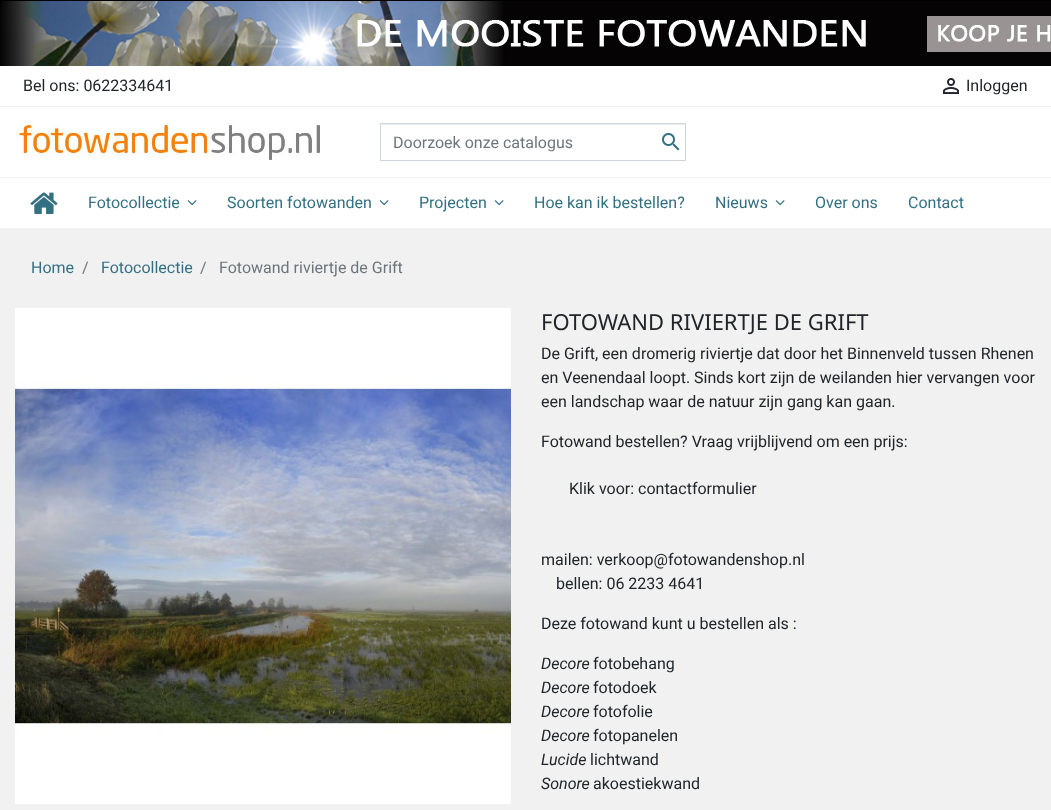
<!DOCTYPE html>
<meta charset="utf-8">
<style>body { margin: 0 } canvas { display: block }</style>
<canvas id="canvas" width="1051" height="810"></canvas>
<script type="module">
  const canvas = document.getElementById("canvas");
  const ctx = canvas.getContext("2d");
  ctx.miterLimit = 4;
  ctx.fontKerning = "normal";
  async function loadImage(src) {
    const img = new Image();
    img.src = src;
    await img.decode();
    return img;
  }

  ctx.fillStyle = "#f1f1f1";
  ctx.fillRect(0, 0, 1051, 810);
  ctx.fillStyle = "#000000";
  ctx.fillRect(0, 0, 1051, 1);
  ctx.fillStyle = "#ffffff";
  ctx.fillRect(0, 66, 1051, 162);
  ctx.drawImage(await loadImage("img1.png"), 0, 1, 1051, 65);
  ctx.fillStyle = "#f1f1f1";
  ctx.fillRect(0, 106, 1051, 1);
  ctx.font = "16px Roboto";
  ctx.fillStyle = "#212529";
  ctx.fillText("Bel ons: 0622334641", 23, 91);
  ctx.drawImage(await loadImage("img2.png"), 943, 78, 16, 16);
  ctx.fillText("Inloggen", 966, 91);
  ctx.fillStyle = "#f1f1f1";
  ctx.fillRect(0, 177, 1051, 1);
  ctx.drawImage(await loadImage("img3.png"), 15, 122, 305, 38);
  ctx.fillStyle = "#ececec";
  ctx.fillRect(381, 124, 304, 1);
  ctx.strokeStyle = "#ced4da";
  ctx.strokeRect(380.5, 123.5, 305, 37);
  ctx.fillStyle = "#6c757d";
  ctx.fillText("Doorzoek onze catalogus", 393, 148);
  ctx.drawImage(await loadImage("img4.png"), 662, 133, 18, 18);
  ctx.drawImage(await loadImage("img5.png"), 30, 192, 28, 22);
  ctx.fillStyle = "#327082";
  ctx.fillText("Fotocollectie", 88, 208);
  ctx.drawImage(await loadImage("img6.png"), 187, 200, 10, 6);
  ctx.fillText("Soorten fotowanden", 227, 208);
  ctx.drawImage(await loadImage("img6.png"), 379, 200, 10, 6);
  ctx.fillText("Projecten", 419, 208);
  ctx.drawImage(await loadImage("img6.png"), 494, 200, 10, 6);
  ctx.fillText("Hoe kan ik bestellen?", 534, 208);
  ctx.fillText("Nieuws", 715, 208);
  ctx.drawImage(await loadImage("img6.png"), 775, 200, 10, 6);
  ctx.fillText("Over ons", 815, 208);
  ctx.fillText("Contact", 908, 208);
  ctx.fillText("Home", 31, 273);
  ctx.fillStyle = "#6c757d";
  ctx.fillText("/", 82, 273);
  ctx.fillStyle = "#327082";
  ctx.fillText("Fotocollectie", 101, 273);
  ctx.fillStyle = "#6c757d";
  ctx.fillText("/", 200, 273);
  ctx.fillText("Fotowand riviertje de Grift", 219, 273);
  ctx.drawImage(await loadImage("img7.png"), 15, 308, 496, 496);
  ctx.font = "22px Noto Sans";
  ctx.fillStyle = "#212529";
  ctx.fillText("FOTOWAND RIVIERTJE DE GRIFT", 541, 330);
  ctx.font = "16px Roboto";
  ctx.fillText("De Grift, een dromerig riviertje dat door het Binnenveld tussen Rhenen", 541, 359);
  ctx.fillText("en Veenendaal loopt. Sinds kort zijn de weilanden hier vervangen voor", 541, 383);
  ctx.fillText("een landschap waar de natuur zijn gang kan gaan.", 541, 407);
  ctx.fillText("Fotowand bestellen? Vraag vrijblijvend om een prijs:", 541, 447);
  ctx.fillText("Klik voor: contactformulier", 569, 494);
  ctx.fillText("mailen: verkoop@fotowandenshop.nl", 541, 565);
  ctx.fillText("bellen: 06 2233 4641", 556, 589);
  ctx.fillText("Deze fotowand kunt u bestellen als :", 541, 629);
  ctx.font = "italic 16px Roboto";
  ctx.fillText("Decore", 541, 669);
  ctx.font = "16px Roboto";
  ctx.fillText("fotobehang", 593, 669);
  ctx.font = "italic 16px Roboto";
  ctx.fillText("Decore", 541, 693);
  ctx.font = "16px Roboto";
  ctx.fillText("fotodoek", 593, 693);
  ctx.font = "italic 16px Roboto";
  ctx.fillText("Decore", 541, 717);
  ctx.font = "16px Roboto";
  ctx.fillText("fotofolie", 593, 717);
  ctx.font = "italic 16px Roboto";
  ctx.fillText("Decore", 541, 741);
  ctx.font = "16px Roboto";
  ctx.fillText("fotopanelen", 593, 741);
  ctx.font = "italic 16px Roboto";
  ctx.fillText("Lucide", 541, 765);
  ctx.font = "16px Roboto";
  ctx.fillText("lichtwand", 590, 765);
  ctx.font = "italic 16px Roboto";
  ctx.fillText("Sonore", 541, 789);
  ctx.font = "16px Roboto";
  ctx.fillText("akoestiekwand", 593, 789);
</script>
